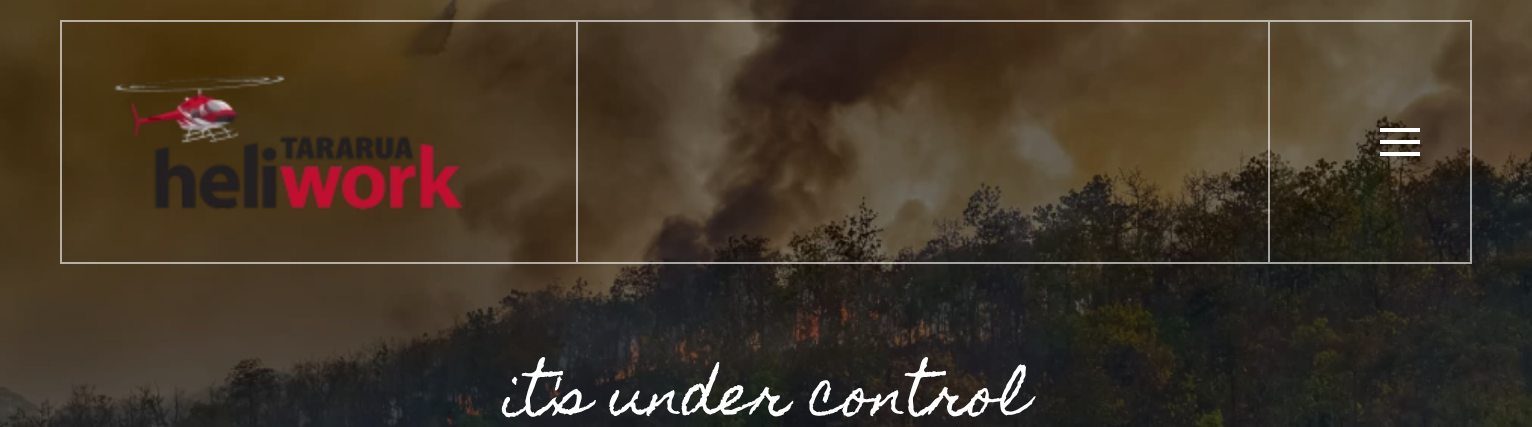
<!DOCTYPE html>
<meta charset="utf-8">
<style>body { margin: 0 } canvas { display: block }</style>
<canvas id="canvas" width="1532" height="427"></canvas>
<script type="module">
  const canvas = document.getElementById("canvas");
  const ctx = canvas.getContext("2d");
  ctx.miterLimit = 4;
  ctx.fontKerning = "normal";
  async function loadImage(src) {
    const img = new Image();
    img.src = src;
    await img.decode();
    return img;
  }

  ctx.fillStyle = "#ffffff";
  ctx.fillRect(0, 0, 1532, 427);
  ctx.drawImage(await loadImage("img2.png"), 0, 0, 1532, 427);
  ctx.strokeStyle = "rgba(255, 255, 255, 0.6)";
  ctx.lineWidth = 2;
  ctx.strokeRect(61, 21, 1410, 242);
  ctx.fillStyle = "rgba(255, 255, 255, 0.6)";
  ctx.fillRect(576, 22, 2, 240);
  ctx.drawImage(await loadImage("img1.png"), 113, 75, 350, 136);
  ctx.fillRect(1268, 22, 2, 240);
  ctx.fillStyle = "#ffffff";
  ctx.fillRect(1380, 128, 40, 4);
  ctx.fillRect(1380, 140, 40, 4);
  ctx.fillRect(1380, 152, 40, 4);
  ctx.font = "56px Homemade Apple";
  ctx.fillText("it's under control", 503, 414);
</script>
